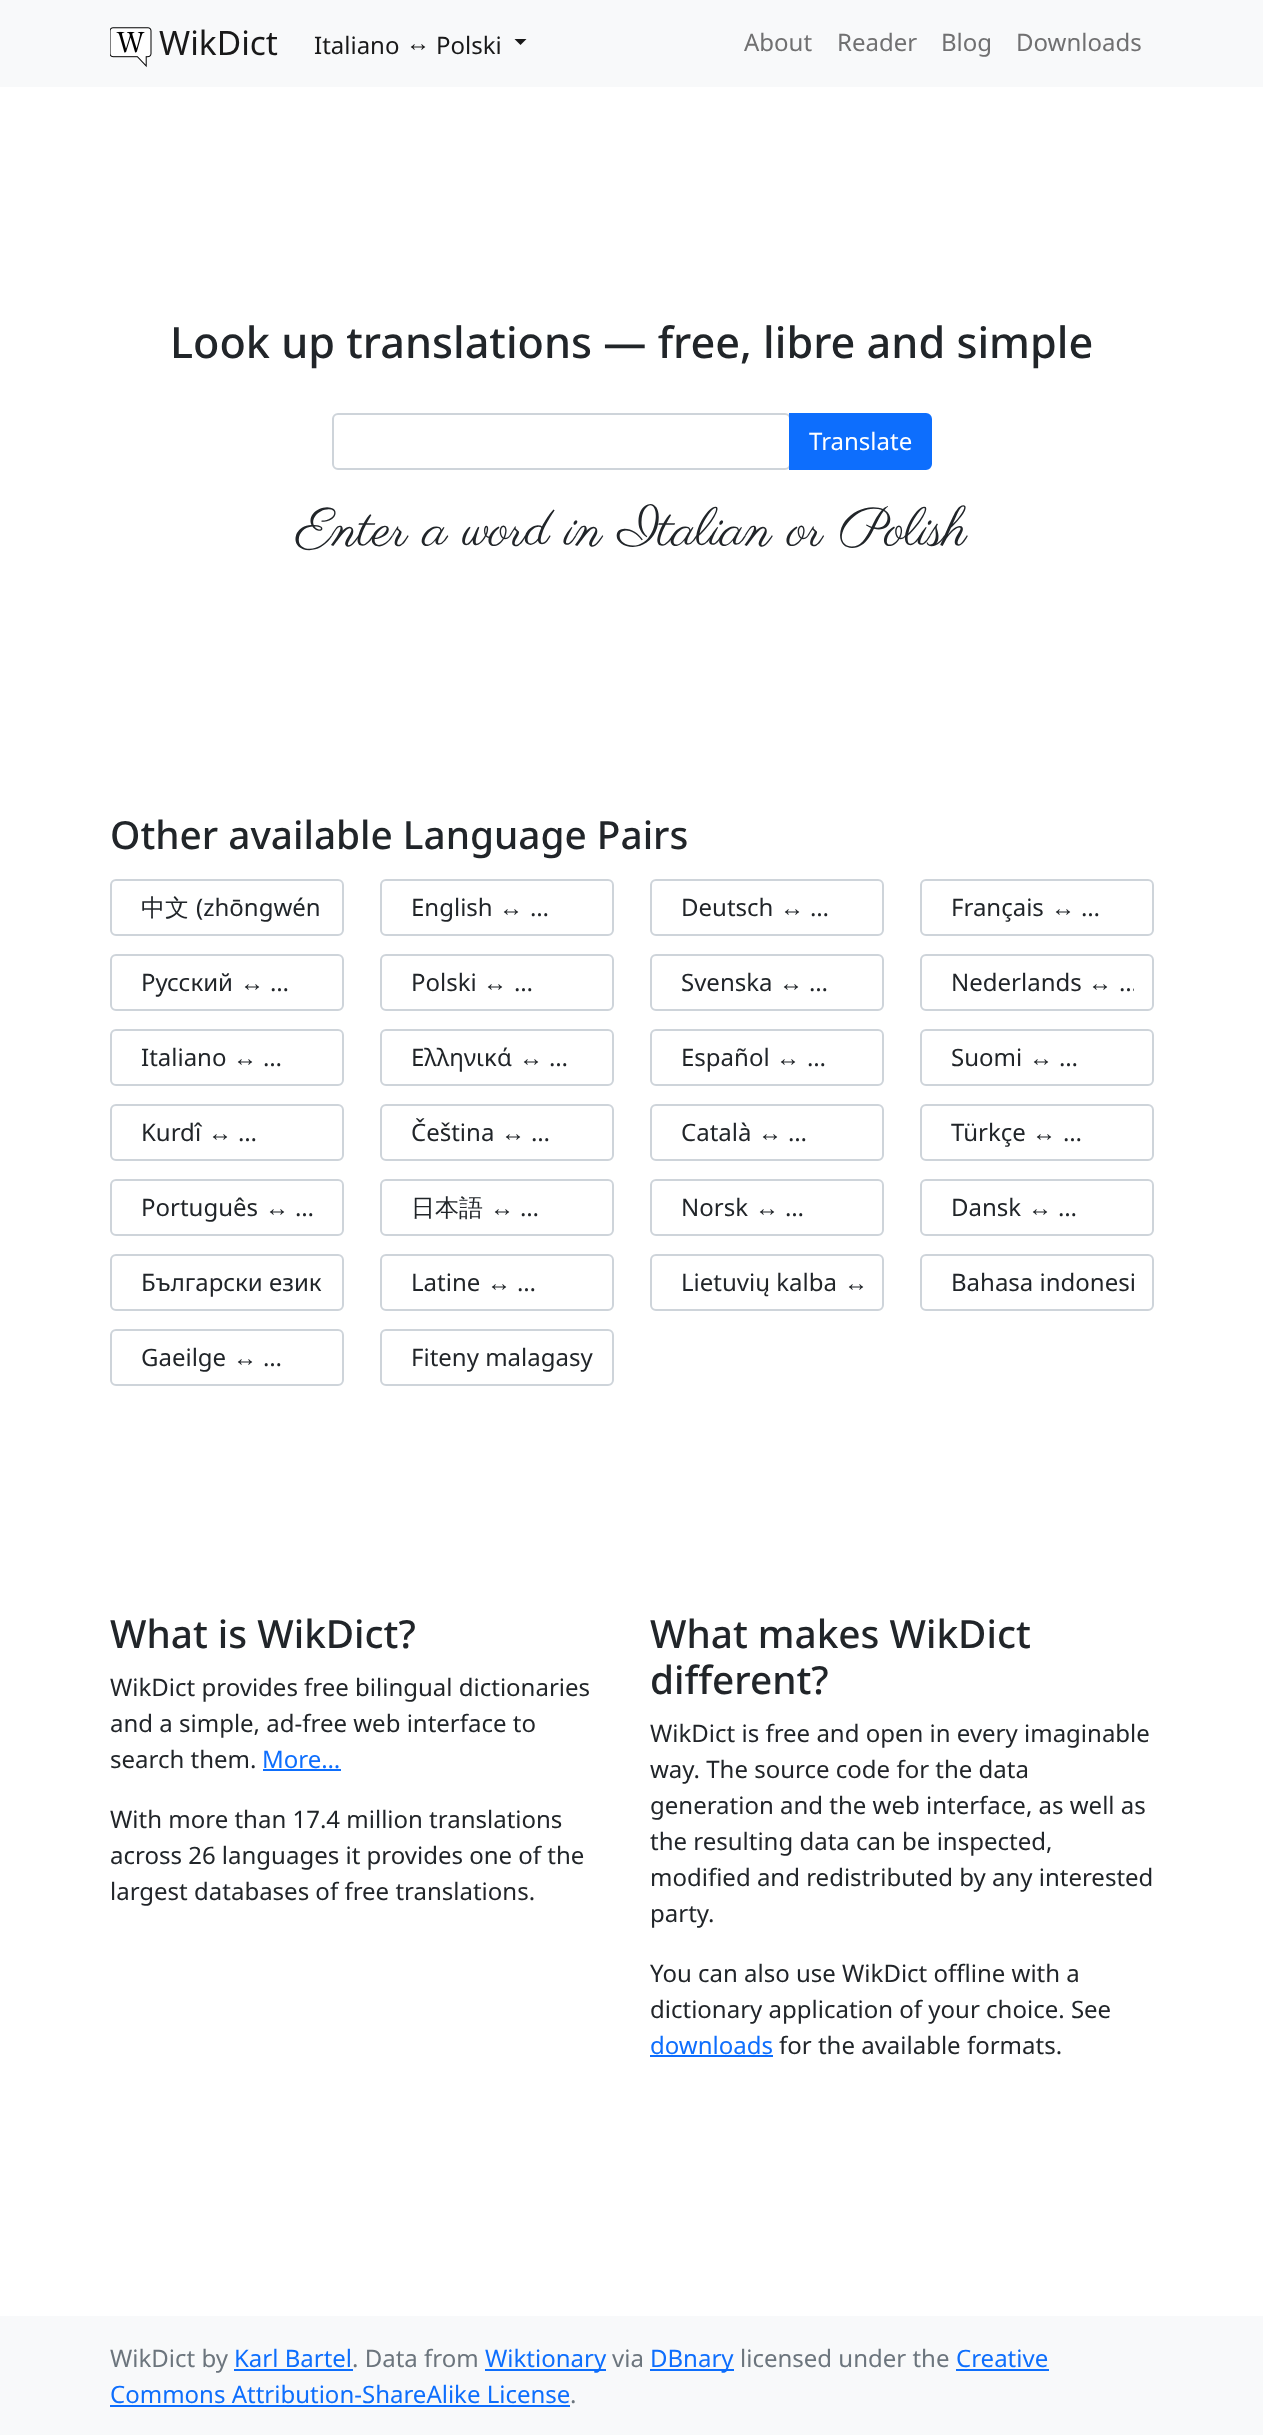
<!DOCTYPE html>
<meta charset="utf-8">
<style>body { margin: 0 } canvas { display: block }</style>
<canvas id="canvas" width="1263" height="2435"></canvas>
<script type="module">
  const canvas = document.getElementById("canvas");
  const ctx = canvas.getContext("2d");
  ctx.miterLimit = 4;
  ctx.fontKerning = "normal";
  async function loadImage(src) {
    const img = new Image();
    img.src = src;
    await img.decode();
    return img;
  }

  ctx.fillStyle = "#ffffff";
  ctx.fillRect(0, 0, 1263, 2435);
  ctx.fillStyle = "#f8f9fa";
  ctx.fillRect(0, 0, 1263, 87);
  ctx.drawImage(await loadImage("img1.png"), 110, 27, 42, 41);
  ctx.font = "33.5px Noto Sans";
  ctx.fillStyle = "#191919";
  ctx.fillText("WikDict", 159, 55);
  ctx.font = "24px Noto Sans";
  ctx.fillText("Italiano", 314, 54);
  ctx.fillText("Polski", 436, 54);
  ctx.beginPath();
  ctx.moveTo(514.5, 39);
  ctx.lineTo(526.5, 39);
  ctx.lineTo(520.5, 45);
  ctx.closePath();
  ctx.fill();
  ctx.font = "24px Liberation Sans";
  ctx.fillText("↔", 406, 51);
  ctx.font = "24px Noto Sans";
  ctx.fillStyle = "#707071";
  ctx.fillText("About", 744, 51);
  ctx.fillText("Reader", 837, 51);
  ctx.fillText("Blog", 941, 51);
  ctx.fillText("Downloads", 1016, 51);
  ctx.font = "500 43.2px Noto Sans";
  ctx.fillStyle = "#212529";
  ctx.fillText("Look up translations — free, libre and simple", 170, 358);
  ctx.beginPath();
  ctx.roundRect(333, 414, 457, 55, 5);
  ctx.strokeStyle = "#ced4da";
  ctx.lineWidth = 2;
  ctx.stroke();
  ctx.fillStyle = "#0d6efd";
  ctx.beginPath();
  ctx.roundRect(790, 414, 141, 55, [0, 5, 5, 0]);
  ctx.fill();
  ctx.strokeStyle = "#0d6efd";
  ctx.stroke();
  ctx.font = "24px Noto Sans";
  ctx.fillStyle = "#ffffff";
  ctx.fillText("Translate", 809, 450);
  ctx.font = "54px Parisienne";
  ctx.fillStyle = "#212529";
  ctx.fillText("Enter a word in Italian or Polish", 296, 545);
  ctx.font = "500 38.75px Noto Sans";
  ctx.fillText("Other available Language Pairs", 110, 849);
  ctx.beginPath();
  ctx.roundRect(111, 880, 232, 55, 5);
  ctx.strokeStyle = "#ced4da";
  ctx.stroke();
  ctx.font = "500 24px WenQuanYi Zen Hei";
  ctx.fillText("中文", 141, 916);
  ctx.font = "24px Noto Sans";
  ctx.fillText("(zhōngwén", 196, 916);
  ctx.beginPath();
  ctx.roundRect(381, 880, 232, 55, 5);
  ctx.stroke();
  ctx.fillText("English", 411, 916);
  ctx.font = "24px Liberation Sans";
  ctx.fillText("↔", 499, 916);
  ctx.font = "24px Noto Sans";
  ctx.fillText("…", 530, 916);
  ctx.beginPath();
  ctx.roundRect(651, 880, 232, 55, 5);
  ctx.stroke();
  ctx.fillText("Deutsch", 681, 916);
  ctx.font = "24px Liberation Sans";
  ctx.fillText("↔", 780, 916);
  ctx.font = "24px Noto Sans";
  ctx.fillText("…", 810, 916);
  ctx.beginPath();
  ctx.roundRect(921, 880, 232, 55, 5);
  ctx.stroke();
  ctx.fillText("Français", 951, 916);
  ctx.font = "24px Liberation Sans";
  ctx.fillText("↔", 1051, 916);
  ctx.font = "24px Noto Sans";
  ctx.fillText("…", 1081, 916);
  ctx.beginPath();
  ctx.roundRect(111, 955, 232, 55, 5);
  ctx.stroke();
  ctx.fillText("Русский", 141, 991);
  ctx.font = "24px Liberation Sans";
  ctx.fillText("↔", 240, 991);
  ctx.font = "24px Noto Sans";
  ctx.fillText("…", 270, 991);
  ctx.beginPath();
  ctx.roundRect(381, 955, 232, 55, 5);
  ctx.stroke();
  ctx.fillText("Polski", 411, 991);
  ctx.font = "24px Liberation Sans";
  ctx.fillText("↔", 483, 991);
  ctx.font = "24px Noto Sans";
  ctx.fillText("…", 514, 991);
  ctx.beginPath();
  ctx.roundRect(651, 955, 232, 55, 5);
  ctx.stroke();
  ctx.fillText("Svenska", 681, 991);
  ctx.font = "24px Liberation Sans";
  ctx.fillText("↔", 779, 991);
  ctx.font = "24px Noto Sans";
  ctx.fillText("…", 809, 991);
  ctx.beginPath();
  ctx.roundRect(921, 955, 232, 55, 5);
  ctx.stroke();
  ctx.fillText("Nederlands", 951, 991);
  ctx.font = "24px Liberation Sans";
  ctx.fillText("↔", 1088, 991);
  ctx.save();
  ctx.beginPath();
  ctx.rect(939, 965, 195, 36);
  ctx.clip();
  ctx.font = "24px Noto Sans";
  ctx.fillText("…", 1119, 991);
  ctx.restore();
  ctx.beginPath();
  ctx.roundRect(111, 1030, 232, 55, 5);
  ctx.stroke();
  ctx.font = "24px Noto Sans";
  ctx.fillText("Italiano", 141, 1066);
  ctx.font = "24px Liberation Sans";
  ctx.fillText("↔", 233, 1066);
  ctx.font = "24px Noto Sans";
  ctx.fillText("…", 263, 1066);
  ctx.beginPath();
  ctx.roundRect(381, 1030, 232, 55, 5);
  ctx.stroke();
  ctx.fillText("Ελληνικά", 411, 1066);
  ctx.font = "24px Liberation Sans";
  ctx.fillText("↔", 519, 1066);
  ctx.font = "24px Noto Sans";
  ctx.fillText("…", 549, 1066);
  ctx.beginPath();
  ctx.roundRect(651, 1030, 232, 55, 5);
  ctx.stroke();
  ctx.fillText("Español", 681, 1066);
  ctx.font = "24px Liberation Sans";
  ctx.fillText("↔", 776, 1066);
  ctx.font = "24px Noto Sans";
  ctx.fillText("…", 807, 1066);
  ctx.beginPath();
  ctx.roundRect(921, 1030, 232, 55, 5);
  ctx.stroke();
  ctx.fillText("Suomi", 951, 1066);
  ctx.font = "24px Liberation Sans";
  ctx.fillText("↔", 1029, 1066);
  ctx.font = "24px Noto Sans";
  ctx.fillText("…", 1059, 1066);
  ctx.beginPath();
  ctx.roundRect(111, 1105, 232, 55, 5);
  ctx.stroke();
  ctx.fillText("Kurdî", 141, 1141);
  ctx.font = "24px Liberation Sans";
  ctx.fillText("↔", 208, 1141);
  ctx.font = "24px Noto Sans";
  ctx.fillText("…", 238, 1141);
  ctx.beginPath();
  ctx.roundRect(381, 1105, 232, 55, 5);
  ctx.stroke();
  ctx.fillText("Čeština", 411, 1141);
  ctx.font = "24px Liberation Sans";
  ctx.fillText("↔", 501, 1141);
  ctx.font = "24px Noto Sans";
  ctx.fillText("…", 531, 1141);
  ctx.beginPath();
  ctx.roundRect(651, 1105, 232, 55, 5);
  ctx.stroke();
  ctx.fillText("Català", 681, 1141);
  ctx.font = "24px Liberation Sans";
  ctx.fillText("↔", 758, 1141);
  ctx.font = "24px Noto Sans";
  ctx.fillText("…", 788, 1141);
  ctx.beginPath();
  ctx.roundRect(921, 1105, 232, 55, 5);
  ctx.stroke();
  ctx.fillText("Türkçe", 951, 1141);
  ctx.font = "24px Liberation Sans";
  ctx.fillText("↔", 1032, 1141);
  ctx.font = "24px Noto Sans";
  ctx.fillText("…", 1063, 1141);
  ctx.beginPath();
  ctx.roundRect(111, 1180, 232, 55, 5);
  ctx.stroke();
  ctx.fillText("Português", 141, 1216);
  ctx.font = "24px Liberation Sans";
  ctx.fillText("↔", 265, 1216);
  ctx.font = "24px Noto Sans";
  ctx.fillText("…", 295, 1216);
  ctx.beginPath();
  ctx.roundRect(381, 1180, 232, 55, 5);
  ctx.stroke();
  ctx.font = "500 24px WenQuanYi Zen Hei";
  ctx.fillText("日本語", 411, 1216);
  ctx.font = "24px Liberation Sans";
  ctx.fillText("↔", 490, 1216);
  ctx.font = "24px Noto Sans";
  ctx.fillText("…", 520, 1216);
  ctx.beginPath();
  ctx.roundRect(651, 1180, 232, 55, 5);
  ctx.stroke();
  ctx.fillText("Norsk", 681, 1216);
  ctx.font = "24px Liberation Sans";
  ctx.fillText("↔", 755, 1216);
  ctx.font = "24px Noto Sans";
  ctx.fillText("…", 785, 1216);
  ctx.beginPath();
  ctx.roundRect(921, 1180, 232, 55, 5);
  ctx.stroke();
  ctx.fillText("Dansk", 951, 1216);
  ctx.font = "24px Liberation Sans";
  ctx.fillText("↔", 1028, 1216);
  ctx.font = "24px Noto Sans";
  ctx.fillText("…", 1058, 1216);
  ctx.beginPath();
  ctx.roundRect(111, 1255, 232, 55, 5);
  ctx.stroke();
  ctx.fillText("Български език", 141, 1291);
  ctx.beginPath();
  ctx.roundRect(381, 1255, 232, 55, 5);
  ctx.stroke();
  ctx.fillText("Latine", 411, 1291);
  ctx.font = "24px Liberation Sans";
  ctx.fillText("↔", 487, 1291);
  ctx.font = "24px Noto Sans";
  ctx.fillText("…", 517, 1291);
  ctx.beginPath();
  ctx.roundRect(651, 1255, 232, 55, 5);
  ctx.stroke();
  ctx.fillText("Lietuvių kalba", 681, 1291);
  ctx.font = "24px Liberation Sans";
  ctx.fillText("↔", 844, 1291);
  ctx.beginPath();
  ctx.roundRect(921, 1255, 232, 55, 5);
  ctx.stroke();
  ctx.save();
  ctx.beginPath();
  ctx.rect(939, 1265, 195, 36);
  ctx.clip();
  ctx.font = "24px Noto Sans";
  ctx.fillText("Bahasa indonesi", 951, 1291);
  ctx.restore();
  ctx.beginPath();
  ctx.roundRect(111, 1330, 232, 55, 5);
  ctx.stroke();
  ctx.font = "24px Noto Sans";
  ctx.fillText("Gaeilge", 141, 1366);
  ctx.font = "24px Liberation Sans";
  ctx.fillText("↔", 233, 1366);
  ctx.font = "24px Noto Sans";
  ctx.fillText("…", 263, 1366);
  ctx.beginPath();
  ctx.roundRect(381, 1330, 232, 55, 5);
  ctx.stroke();
  ctx.fillText("Fiteny malagasy", 411, 1366);
  ctx.font = "500 38.75px Noto Sans";
  ctx.fillText("What is WikDict?", 110, 1648);
  ctx.font = "24px Noto Sans";
  ctx.fillText("WikDict provides free bilingual dictionaries", 110, 1696);
  ctx.fillText("and a simple, ad-free web interface to", 110, 1732);
  ctx.fillText("search them.", 110, 1768);
  ctx.fillStyle = "#0d6efd";
  ctx.fillText("More…", 262, 1768);
  ctx.fillRect(263, 1769, 78, 2);
  ctx.fillStyle = "#212529";
  ctx.fillText("With more than 17.4 million translations", 110, 1828);
  ctx.fillText("across 26 languages it provides one of the", 110, 1864);
  ctx.fillText("largest databases of free translations.", 110, 1900);
  ctx.font = "500 38.75px Noto Sans";
  ctx.fillText("What makes WikDict", 650, 1648);
  ctx.fillText("different?", 650, 1694);
  ctx.font = "24px Noto Sans";
  ctx.fillText("WikDict is free and open in every imaginable", 650, 1742);
  ctx.fillText("way. The source code for the data", 650, 1778);
  ctx.fillText("generation and the web interface, as well as", 650, 1814);
  ctx.fillText("the resulting data can be inspected,", 650, 1850);
  ctx.fillText("modified and redistributed by any interested", 650, 1886);
  ctx.fillText("party.", 650, 1922);
  ctx.fillText("You can also use WikDict offline with a", 650, 1982);
  ctx.fillText("dictionary application of your choice. See", 650, 2018);
  ctx.fillStyle = "#0d6efd";
  ctx.fillText("downloads", 650, 2054);
  ctx.fillRect(650, 2055, 123, 2);
  ctx.fillStyle = "#212529";
  ctx.fillText("for the available formats.", 779, 2054);
  ctx.fillStyle = "#f8f9fa";
  ctx.fillRect(0, 2316, 1263, 119);
  ctx.fillStyle = "#6c757d";
  ctx.fillText("WikDict by", 110, 2367);
  ctx.fillStyle = "#0d6efd";
  ctx.fillText("Karl Bartel", 234, 2367);
  ctx.fillRect(234, 2369, 119, 2);
  ctx.fillStyle = "#6c757d";
  ctx.fillText(". Data from", 352, 2367);
  ctx.fillStyle = "#0d6efd";
  ctx.fillRect(485, 2369, 121, 2);
  ctx.fillText("Wiktionary", 485, 2367);
  ctx.fillStyle = "#6c757d";
  ctx.fillText("via", 612, 2367);
  ctx.fillStyle = "#0d6efd";
  ctx.fillRect(650, 2369, 84, 2);
  ctx.fillText("DBnary", 650, 2367);
  ctx.fillStyle = "#6c757d";
  ctx.fillText("licensed under the", 740, 2367);
  ctx.fillStyle = "#0d6efd";
  ctx.fillText("Creative", 956, 2367);
  ctx.fillRect(956, 2369, 93, 2);
  ctx.fillText("Commons Attribution-ShareAlike License", 110, 2403);
  ctx.fillRect(110, 2405, 460, 2);
  ctx.fillStyle = "#6c757d";
  ctx.fillText(".", 570, 2403);
</script>
